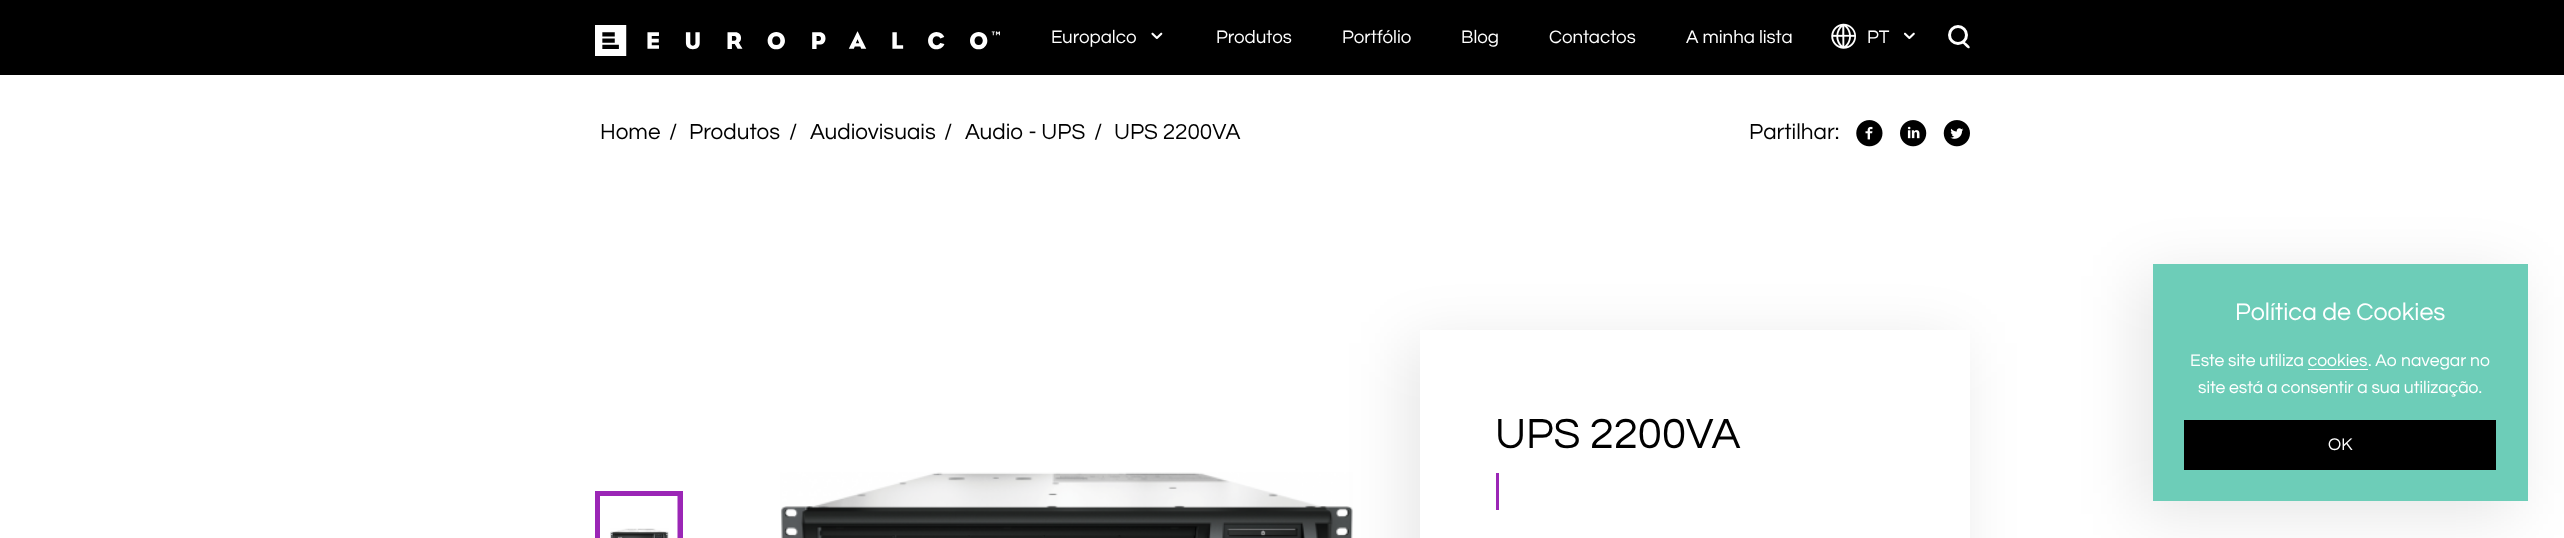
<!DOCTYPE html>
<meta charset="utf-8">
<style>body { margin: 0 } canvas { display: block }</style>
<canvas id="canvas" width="2564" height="538"></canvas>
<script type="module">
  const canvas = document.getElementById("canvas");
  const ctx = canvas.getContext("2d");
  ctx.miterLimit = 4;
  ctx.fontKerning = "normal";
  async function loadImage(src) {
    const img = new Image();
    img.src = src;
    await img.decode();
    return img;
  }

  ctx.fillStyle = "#000000";
  ctx.fillRect(0, 0, 2564, 538);
  ctx.drawImage(await loadImage("img1.png"), 595, 25, 405, 31);
  ctx.font = "18.75px Questrial";
  ctx.fillStyle = "#ffffff";
  ctx.fillText("Europalco", 1051, 43);
  ctx.drawImage(await loadImage("img2.png"), 1151, 32, 12, 7);
  ctx.fillText("Produtos", 1216, 43);
  ctx.fillText("Portfólio", 1342, 43);
  ctx.fillText("Blog", 1461, 43);
  ctx.fillText("Contactos", 1549, 43);
  ctx.fillText("A minha lista", 1686, 43);
  ctx.drawImage(await loadImage("img3.png"), 1831, 23, 25, 26);
  ctx.fillText("PT", 1867, 43);
  ctx.drawImage(await loadImage("img4.png"), 1904, 32, 11, 7);
  ctx.beginPath();
  ctx.moveTo(1960.5, 39.5);
  ctx.bezierCurveTo(1962, 38, 1965, 42, 1966, 43);
  ctx.bezierCurveTo(1966.5, 43.5, 1971, 46.5, 1969.5, 48);
  ctx.bezierCurveTo(1968, 49.5, 1965, 45.5, 1964, 44.5);
  ctx.bezierCurveTo(1963.5, 44, 1959, 41, 1960.5, 39.5);
  ctx.closePath();
  ctx.fill();
  ctx.fillStyle = "#000000";
  ctx.beginPath();
  ctx.arc(1958, 35, 8.5, 0, Math.PI * 2);
  ctx.fill();
  ctx.strokeStyle = "#ffffff";
  ctx.lineWidth = 3;
  ctx.stroke();
  ctx.fillStyle = "#ffffff";
  ctx.fillRect(0, 75, 2564, 463);
  ctx.font = "22.5px Questrial";
  ctx.fillStyle = "#000000";
  ctx.fillText("Home", 600, 139);
  ctx.fillText("/", 669, 139);
  ctx.fillText("Produtos", 689, 139);
  ctx.fillText("/", 789, 139);
  ctx.fillText("Audiovisuais", 810, 139);
  ctx.fillText("/", 944, 139);
  ctx.fillText("Audio - UPS", 965, 139);
  ctx.fillText("/", 1094, 139);
  ctx.fillText("UPS 2200VA", 1114, 139);
  ctx.fillText("Partilhar:", 1749, 139);
  ctx.drawImage(await loadImage("img5.png"), 1856, 120, 27, 27);
  ctx.drawImage(await loadImage("img6.png"), 1900, 120, 27, 27);
  ctx.drawImage(await loadImage("img7.png"), 1943, 120, 27, 27);
  ctx.drawImage(await loadImage("img9.png"), 780, 472, 573, 66);
  ctx.save();
  ctx.beginPath();
  ctx.moveTo(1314, 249);
  ctx.lineTo(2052, 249);
  ctx.lineTo(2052, 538);
  ctx.lineTo(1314, 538);
  ctx.closePath();
  ctx.moveTo(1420, 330);
  ctx.lineTo(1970, 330);
  ctx.lineTo(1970, 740);
  ctx.lineTo(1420, 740);
  ctx.closePath();
  ctx.clip("evenodd");
  ctx.fillStyle = "rgba(0, 0, 0, 0.1)";
  ctx.filter = "blur(31px)";
  ctx.beginPath();
  ctx.rect(1408, 343, 550, 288);
  ctx.fill();
  ctx.filter = "none";
  ctx.restore();
  ctx.font = "43.75px Questrial";
  ctx.fillText("UPS 2200VA", 1495, 448);
  ctx.fillStyle = "#9b26b6";
  ctx.fillRect(1496, 473, 3, 37);
  ctx.drawImage(await loadImage("img8.png"), 610, 528, 59, 10);
  ctx.save();
  ctx.beginPath();
  ctx.rect(595, 491, 88, 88);
  ctx.clip();
  ctx.beginPath();
  ctx.moveTo(595, 491);
  ctx.lineTo(682.5, 491);
  ctx.lineTo(682.5, 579);
  ctx.lineTo(595, 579);
  ctx.lineTo(595, 491);
  ctx.strokeStyle = "#9b26b6";
  ctx.lineWidth = 10;
  ctx.stroke();
  ctx.restore();
  ctx.fillStyle = "rgba(0, 0, 0, 0.1)";
  ctx.filter = "blur(31px)";
  ctx.beginPath();
  ctx.rect(2140, 276, 375, 238);
  ctx.fill();
  ctx.filter = "none";
  ctx.fillStyle = "#6dcdb8";
  ctx.fillRect(2153, 264, 375, 237);
  ctx.font = "25px Questrial";
  ctx.fillStyle = "#ffffff";
  ctx.fillText("Política de Cookies", 2235, 320);
  ctx.font = "17.5px Questrial";
  ctx.fillText("Este site utiliza cookies", 2190, 366);
  ctx.fillText(". Ao navegar no", 2368, 366);
  ctx.fillRect(2308, 369, 60, 1);
  ctx.fillText("site está a consentir a sua utilização.", 2198, 393);
  ctx.fillStyle = "#000000";
  ctx.fillRect(2184, 420, 312, 50);
  ctx.fillStyle = "#ffffff";
  ctx.fillText("OK", 2328, 450);
</script>
